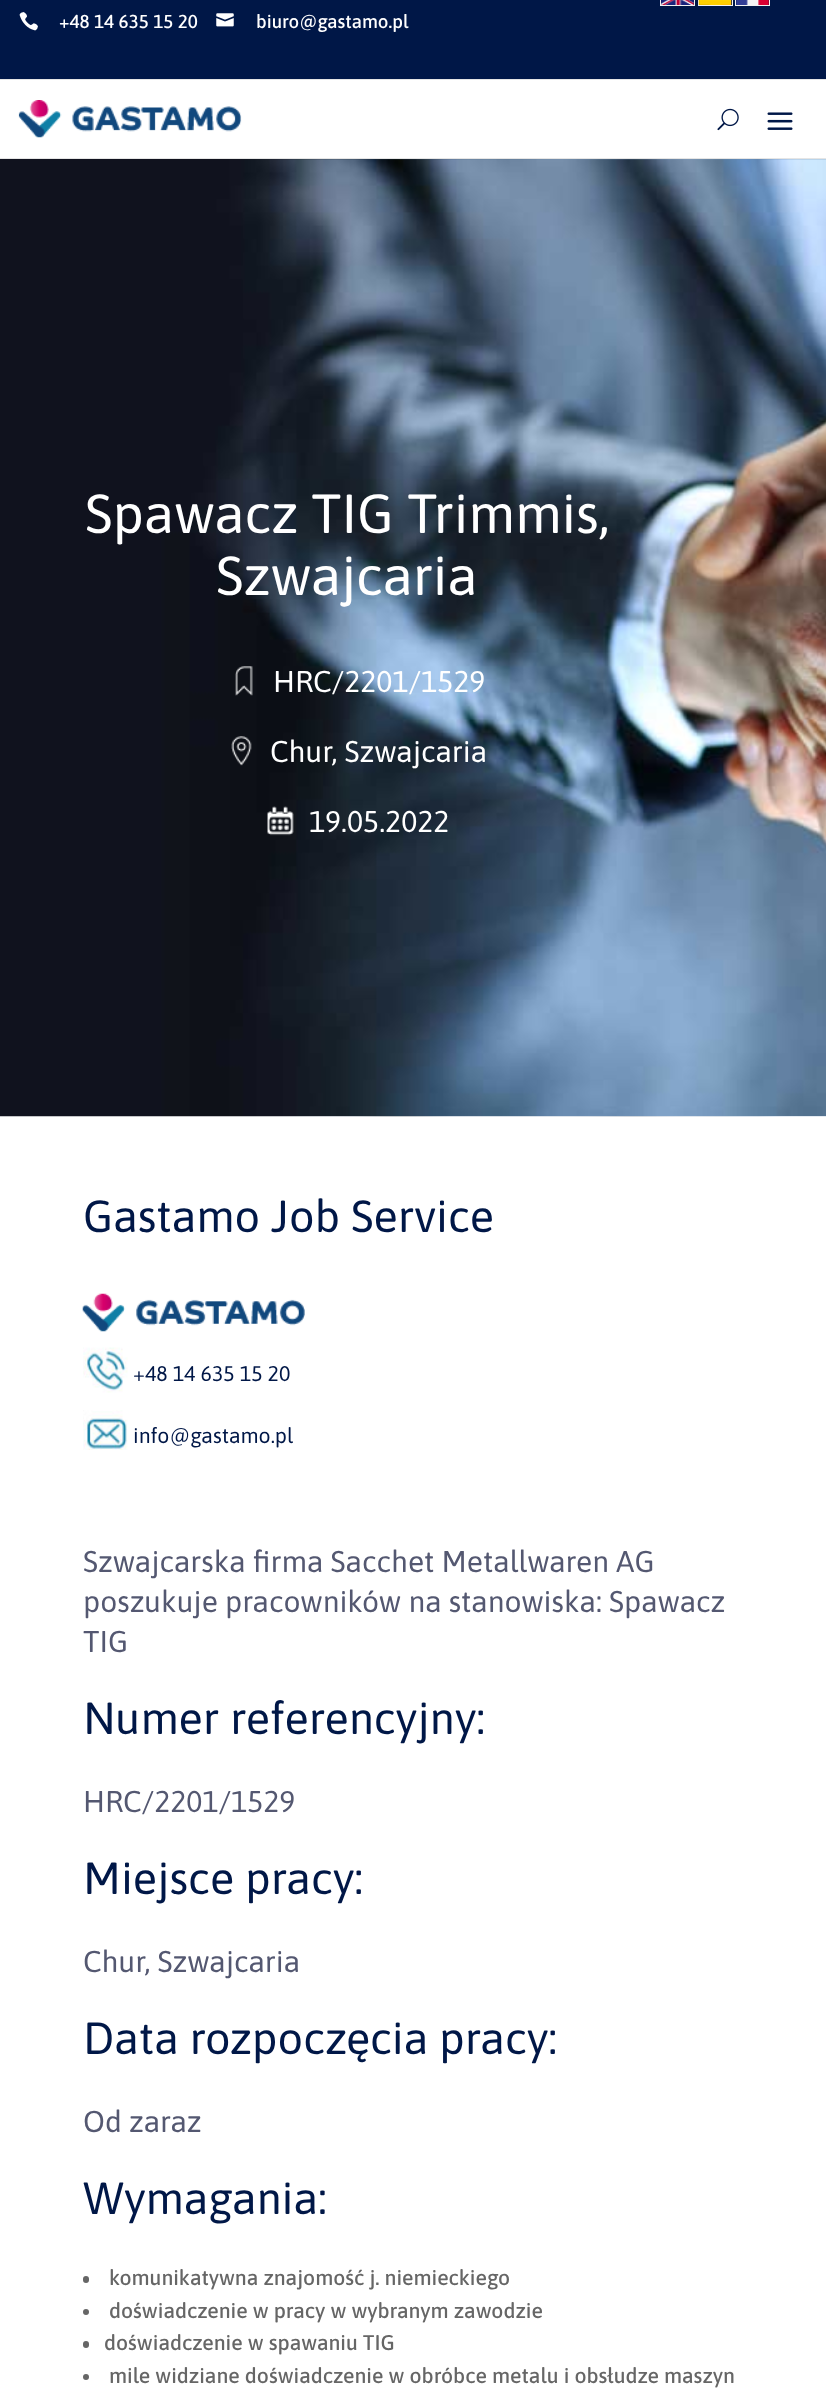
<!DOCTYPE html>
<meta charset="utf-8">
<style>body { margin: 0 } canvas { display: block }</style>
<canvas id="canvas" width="826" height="2403"></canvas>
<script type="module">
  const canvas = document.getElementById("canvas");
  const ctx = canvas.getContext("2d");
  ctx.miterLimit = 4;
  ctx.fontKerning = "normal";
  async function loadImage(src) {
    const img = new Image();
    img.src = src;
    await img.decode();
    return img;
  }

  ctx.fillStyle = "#ffffff";
  ctx.fillRect(0, 0, 826, 2403);
  ctx.fillStyle = "#001747";
  ctx.fillRect(0, 0, 826, 79);
  ctx.fillStyle = "#e5e5e5";
  ctx.fillRect(0, 79, 826, 1);
  ctx.strokeStyle = "#f2f2f2";
  ctx.strokeRect(660.5, -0.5, 34, 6);
  ctx.drawImage(await loadImage("img1.png"), 661, 0, 33, 5);
  ctx.strokeRect(698.5, -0.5, 34, 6);
  ctx.drawImage(await loadImage("img2.png"), 698, 0, 34, 5);
  ctx.strokeRect(735.5, -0.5, 34, 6);
  ctx.drawImage(await loadImage("img3.png"), 736, 0, 33, 5);
  ctx.drawImage(await loadImage("img4.png"), 19, 12, 19, 19);
  ctx.font = "500 18.75px Asap";
  ctx.fillStyle = "#ffffff";
  ctx.fillText("+48 14 635 15 20", 59, 28);
  ctx.drawImage(await loadImage("img5.png"), 216, 13, 18, 14);
  ctx.fillText("biuro@gastamo.pl", 256, 28);
  ctx.fillStyle = "#e5e5e5";
  ctx.fillRect(0, 158, 826, 1);
  ctx.drawImage(await loadImage("img6.png"), 18, 100, 224, 38);
  ctx.drawImage(await loadImage("img7.png"), 717, 108, 22, 23);
  ctx.drawImage(await loadImage("img8.png"), 767, 112, 26, 18);
  ctx.drawImage(await loadImage("img9.png"), 0, 159, 826, 958);
  ctx.font = "55px Asap";
  ctx.fillStyle = "#ffffff";
  ctx.fillText("Spawacz TIG Trimmis,", 85, 533);
  ctx.fillText("Szwajcaria", 216, 595);
  ctx.drawImage(await loadImage("img10.png"), 235, 666, 18, 30);
  ctx.font = "30px Asap";
  ctx.fillText("HRC/2201/1529", 273, 692);
  ctx.drawImage(await loadImage("img11.png"), 231, 736, 21, 30);
  ctx.fillText("Chur, Szwajcaria", 270, 762);
  ctx.drawImage(await loadImage("img12.png"), 267, 806, 27, 30);
  ctx.fillText("19.05.2022", 309, 832);
  ctx.font = "45px Asap";
  ctx.fillStyle = "#001747";
  ctx.fillText("Gastamo Job Service", 83, 1232);
  ctx.drawImage(await loadImage("img13.png"), 82, 1293, 223, 39);
  ctx.drawImage(await loadImage("img14.png"), 83, 1347, 45, 46);
  ctx.font = "21.25px Asap";
  ctx.fillText("+48 14 635 15 20", 133, 1381);
  ctx.drawImage(await loadImage("img15.png"), 83, 1410, 45, 40);
  ctx.fillText("info@gastamo.pl", 133, 1443);
  ctx.font = "30px Asap";
  ctx.fillStyle = "#545871";
  ctx.fillText("Szwajcarska firma Sacchet Metallwaren AG", 83, 1572);
  ctx.fillText("poszukuje pracowników na stanowiska: Spawacz", 83, 1612);
  ctx.fillText("TIG", 83, 1652);
  ctx.font = "45px Asap";
  ctx.fillStyle = "#001747";
  ctx.fillText("Numer referencyjny:", 83, 1734);
  ctx.font = "30px Asap";
  ctx.fillStyle = "#545871";
  ctx.fillText("HRC/2201/1529", 83, 1812);
  ctx.font = "45px Asap";
  ctx.fillStyle = "#001747";
  ctx.fillText("Miejsce pracy:", 83, 1894);
  ctx.font = "30px Asap";
  ctx.fillStyle = "#545871";
  ctx.fillText("Chur, Szwajcaria", 83, 1972);
  ctx.font = "45px Asap";
  ctx.fillStyle = "#001747";
  ctx.fillText("Data rozpoczęcia pracy:", 83, 2054);
  ctx.font = "30px Asap";
  ctx.fillStyle = "#545871";
  ctx.fillText("Od zaraz", 83, 2132);
  ctx.font = "45px Asap";
  ctx.fillStyle = "#001747";
  ctx.fillText("Wymagania:", 83, 2214);
  ctx.fillStyle = "#666666";
  ctx.beginPath();
  ctx.roundRect(83, 2276, 6, 7, 3);
  ctx.fill();
  ctx.font = "500 21.25px Asap";
  ctx.fillText("komunikatywna znajomość j. niemieckiego", 109, 2285);
  ctx.beginPath();
  ctx.arc(86, 2312, 3, 0, Math.PI * 2);
  ctx.fill();
  ctx.fillText("doświadczenie w pracy w wybranym zawodzie", 109, 2318);
  ctx.beginPath();
  ctx.roundRect(83, 2341, 6, 7, 3);
  ctx.fill();
  ctx.fillText("doświadczenie w spawaniu TIG", 104, 2350);
  ctx.beginPath();
  ctx.arc(86, 2377, 3, 0, Math.PI * 2);
  ctx.fill();
  ctx.fillText("mile widziane doświadczenie w obróbce metalu i obsłudze maszyn", 109, 2383);
</script>
